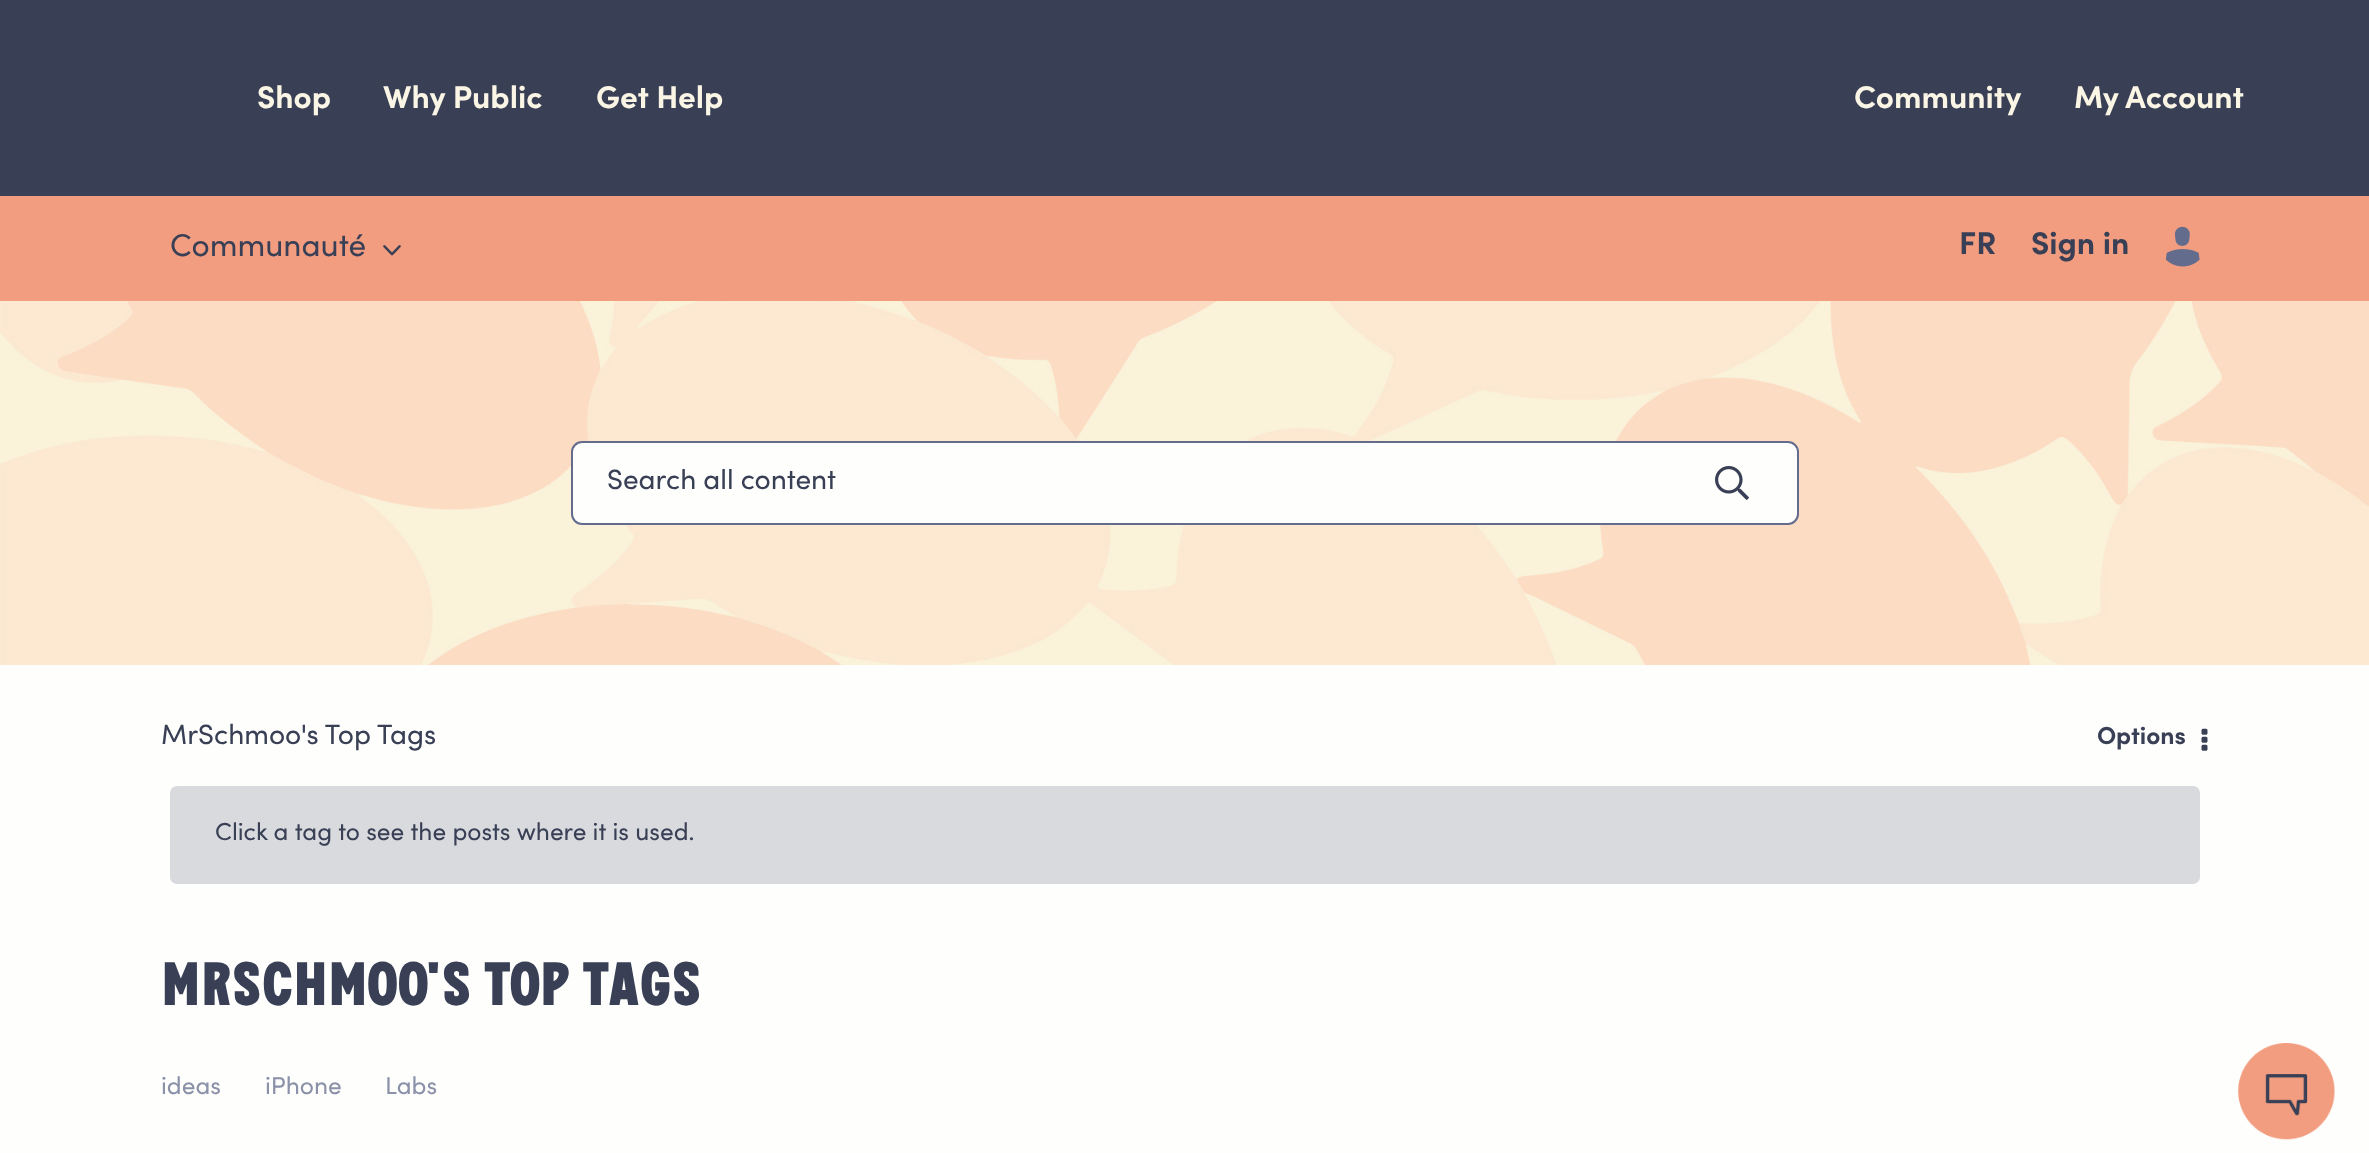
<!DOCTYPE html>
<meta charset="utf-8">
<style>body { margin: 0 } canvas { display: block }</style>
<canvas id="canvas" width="2369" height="1153"></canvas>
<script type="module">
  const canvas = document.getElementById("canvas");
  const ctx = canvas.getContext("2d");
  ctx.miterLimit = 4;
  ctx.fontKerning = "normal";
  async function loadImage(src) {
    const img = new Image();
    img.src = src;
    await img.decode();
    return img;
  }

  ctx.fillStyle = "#fefefc";
  ctx.fillRect(0, 0, 2369, 1153);
  ctx.fillStyle = "#394056";
  ctx.fillRect(0, 0, 2369, 196);
  ctx.font = "bold 31.5px Sofia";
  ctx.fillStyle = "#faf5e5";
  ctx.fillText("Shop", 257, 108);
  ctx.fillText("Why Public", 383, 108);
  ctx.fillText("Get Help", 596, 108);
  ctx.fillText("Community", 1854, 108);
  ctx.fillText("My Account", 2074, 108);
  ctx.fillStyle = "#f39d80";
  ctx.fillRect(0, 196, 2369, 105);
  ctx.font = "31.5px Sofia";
  ctx.fillStyle = "#394056";
  ctx.fillText("Communauté", 170, 256);
  ctx.drawImage(await loadImage("img1.png"), 383, 245, 18, 11);
  ctx.font = "bold 31.5px 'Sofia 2'";
  ctx.fillText("FR", 1959, 254);
  ctx.fillText("Sign in", 2031, 254);
  ctx.drawImage(await loadImage("img2.png"), 2165, 226, 35, 41);
  ctx.drawImage(await loadImage("img3.png"), 0, 301, 2369, 364);
  ctx.fillStyle = "#fefefc";
  ctx.beginPath();
  ctx.roundRect(572, 442, 1226, 82, 10);
  ctx.fill();
  ctx.strokeStyle = "#636c8c";
  ctx.lineWidth = 2;
  ctx.stroke();
  ctx.save();
  ctx.beginPath();
  ctx.rect(607, 469, 1085, 30);
  ctx.clip();
  ctx.font = "28px Sofia";
  ctx.fillStyle = "#394056";
  ctx.fillText("Search all content", 607, 489);
  ctx.restore();
  ctx.drawImage(await loadImage("img4.png"), 1715, 466, 34, 34);
  ctx.font = "28px Sofia";
  ctx.fillStyle = "#394056";
  ctx.fillText("MrSchmoo's Top Tags", 161, 744);
  ctx.font = "bold 24.5px 'Sofia 2'";
  ctx.fillText("Options", 2097, 744);
  ctx.drawImage(await loadImage("img5.png"), 2201, 728, 7, 23);
  ctx.fillStyle = "#d8dade";
  ctx.beginPath();
  ctx.roundRect(171, 787, 2028, 96, 6);
  ctx.fill();
  ctx.strokeStyle = "#d8dade";
  ctx.stroke();
  ctx.font = "24.5px Sofia";
  ctx.fillStyle = "#394056";
  ctx.fillText("Click a tag to see the posts where it is used.", 215, 840);
  ctx.font = "bold 63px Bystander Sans";
  ctx.fillText("MrSchmoo's Top Tags", 161, 1005);
  ctx.font = "24.5px Sofia";
  ctx.fillStyle = "#8a91a8";
  ctx.fillText("ideas", 161, 1094);
  ctx.fillText("iPhone", 265, 1094);
  ctx.fillText("Labs", 385, 1094);
  ctx.drawImage(await loadImage("img6.png"), 2238, 1043, 97, 97);
</script>
